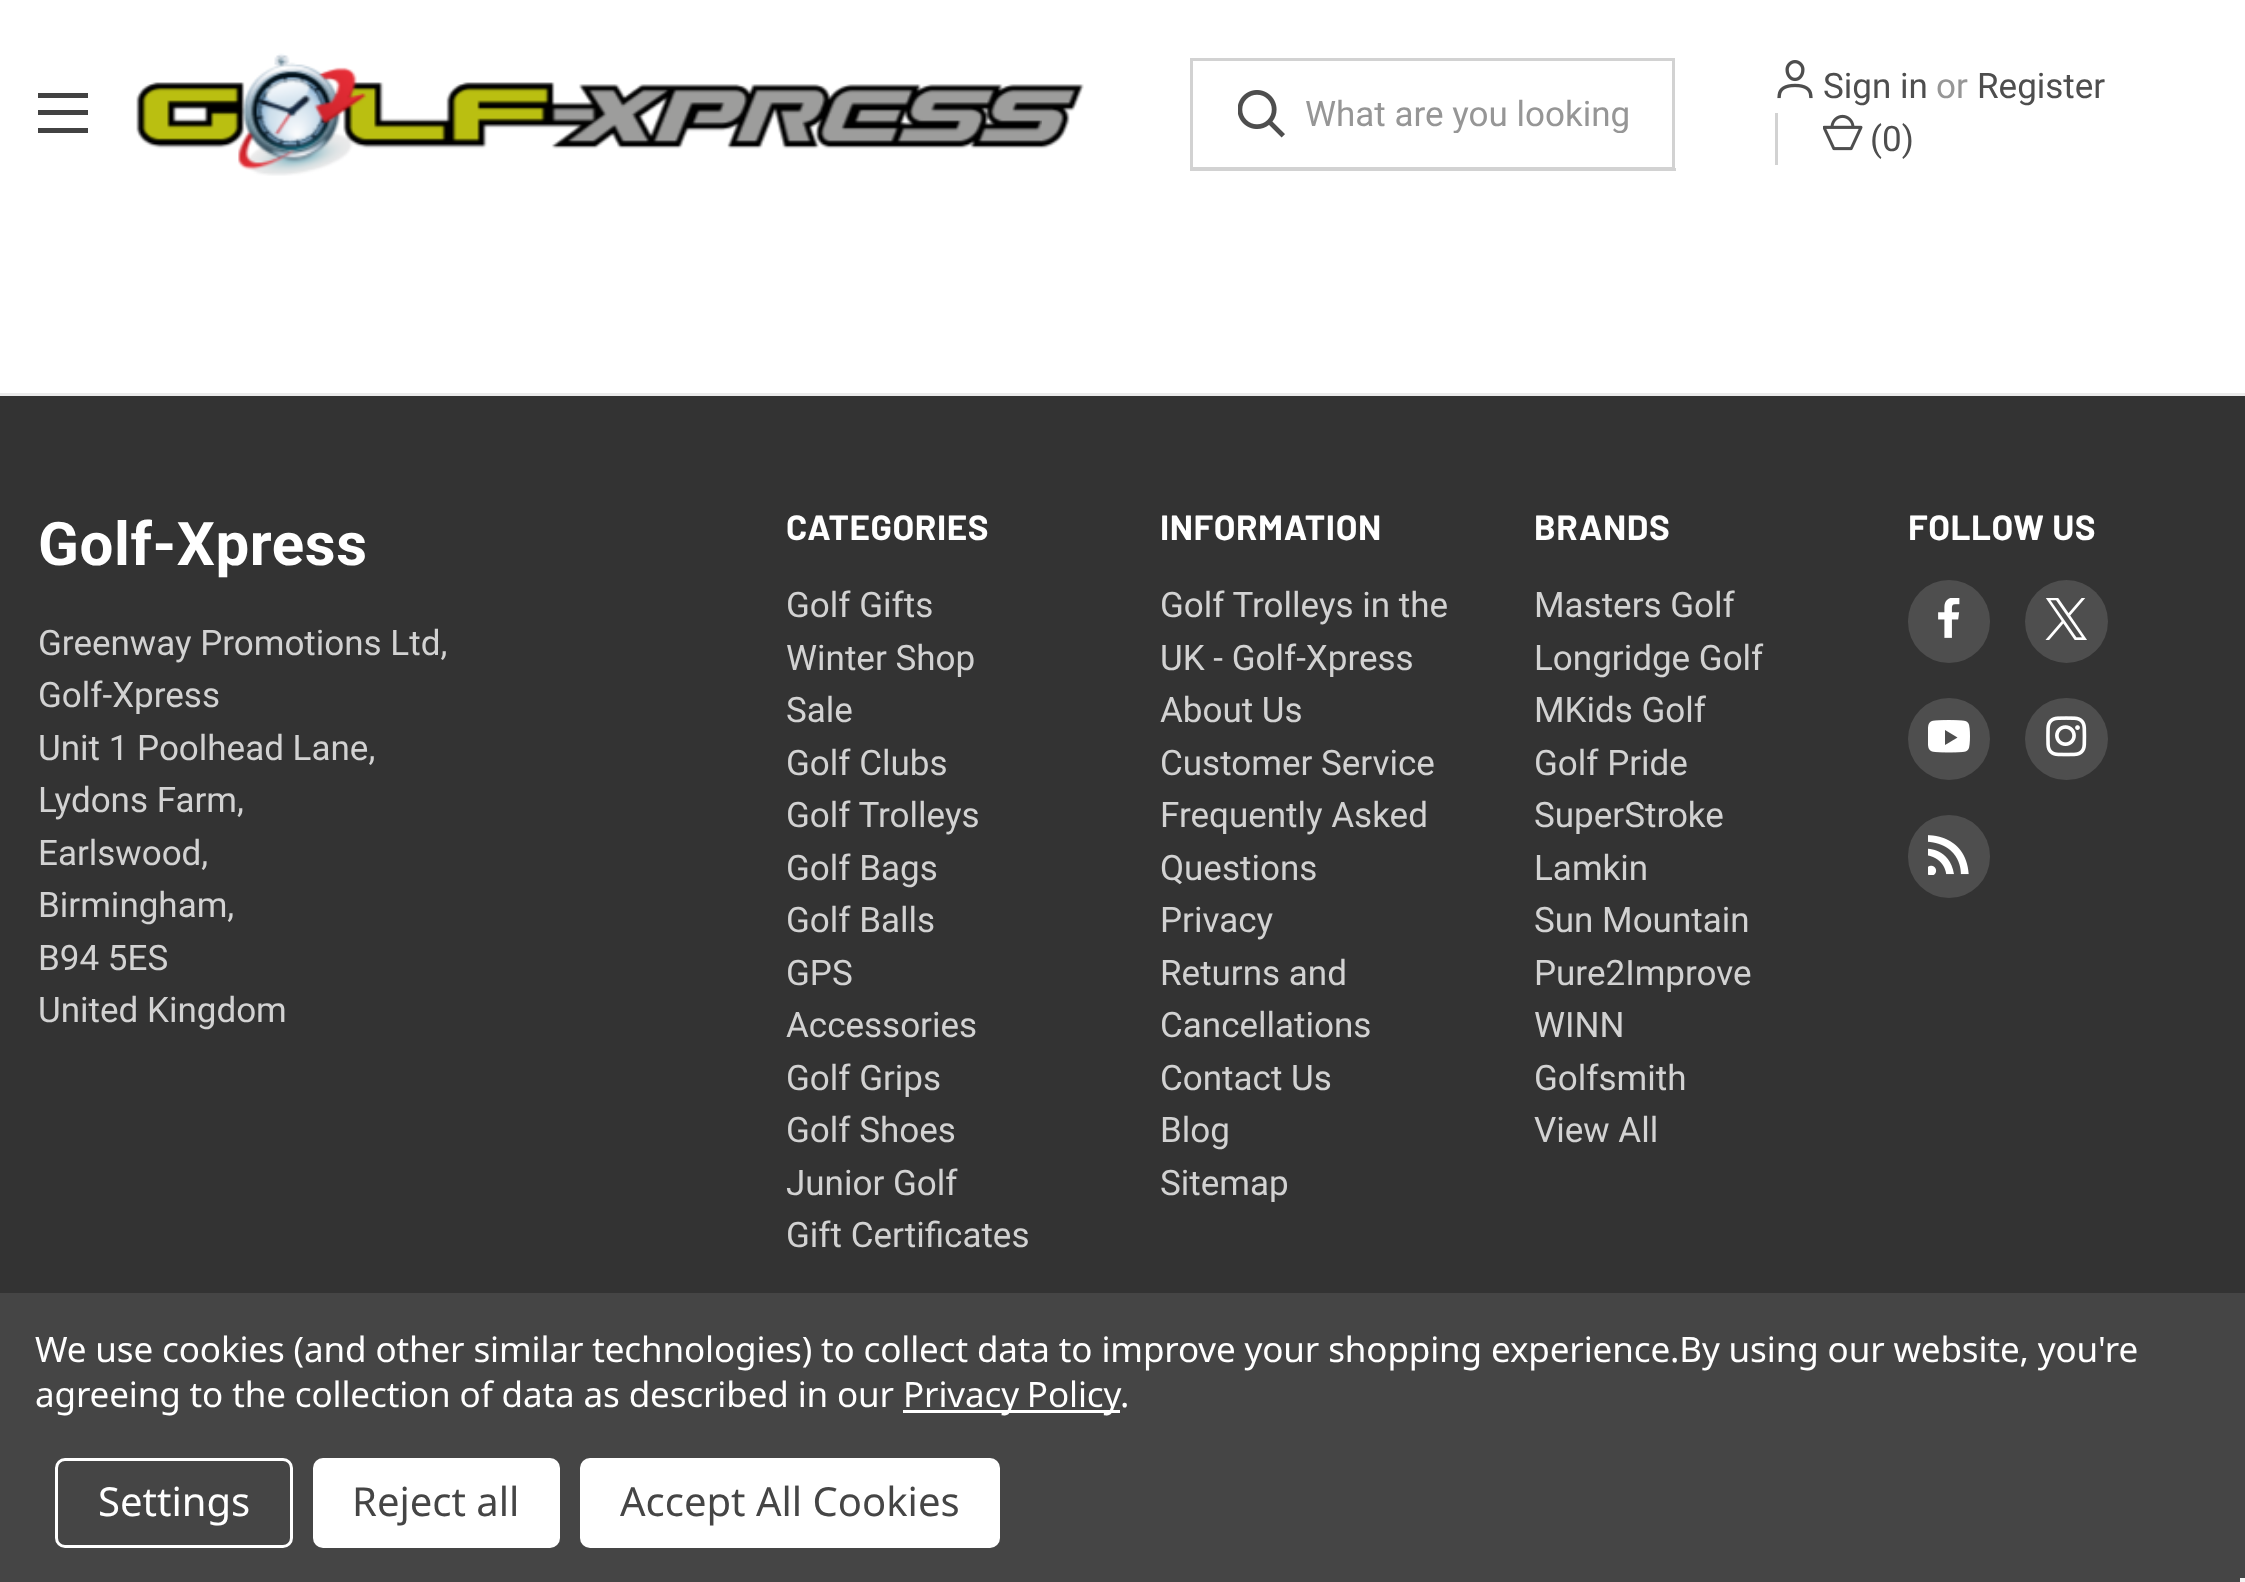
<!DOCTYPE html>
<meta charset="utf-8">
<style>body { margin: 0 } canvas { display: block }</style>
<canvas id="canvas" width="2245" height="1582"></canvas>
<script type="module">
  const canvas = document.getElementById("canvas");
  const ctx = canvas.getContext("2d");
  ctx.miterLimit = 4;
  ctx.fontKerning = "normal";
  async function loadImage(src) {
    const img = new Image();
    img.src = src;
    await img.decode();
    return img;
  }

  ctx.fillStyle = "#ffffff";
  ctx.fillRect(0, 0, 2245, 1582);
  ctx.fillStyle = "#424242";
  ctx.fillRect(38, 110, 50, 5);
  ctx.fillRect(38, 93, 50, 5);
  ctx.fillRect(38, 128, 50, 5);
  ctx.drawImage(await loadImage("img1.png"), 136, 53, 948, 123);
  ctx.strokeStyle = "#d2d2d2";
  ctx.lineWidth = 3;
  ctx.strokeRect(1191.5, 59.5, 482, 109);
  ctx.drawImage(await loadImage("img2.png"), 1238, 90, 47, 48);
  ctx.save();
  ctx.beginPath();
  ctx.rect(1305, 93, 333, 40);
  ctx.clip();
  ctx.font = "35px Roboto";
  ctx.fillStyle = "#969696";
  ctx.fillText("What are you looking", 1305, 126);
  ctx.restore();
  ctx.fillStyle = "#d2d2d2";
  ctx.fillRect(1673, 168, 3, 3);
  ctx.fillRect(1190, 170, 485, 1);
  ctx.drawImage(await loadImage("img3.png"), 1777, 60, 36, 39);
  ctx.font = "35px Roboto";
  ctx.fillStyle = "#4e4e4e";
  ctx.fillText("Sign in", 1823, 98);
  ctx.fillStyle = "#969696";
  ctx.fillText("or", 1936, 98);
  ctx.fillStyle = "#4e4e4e";
  ctx.fillText("Register", 1977, 98);
  ctx.fillStyle = "#d2d2d2";
  ctx.fillRect(1775, 113, 3, 52);
  ctx.drawImage(await loadImage("img4.png"), 1823, 114, 40, 37);
  ctx.fillStyle = "#4e4e4e";
  ctx.fillText("(0)", 1870, 151);
  ctx.fillStyle = "#333333";
  ctx.fillRect(0, 396, 2245, 897);
  ctx.fillStyle = "#ebebeb";
  ctx.fillRect(0, 393, 2245, 3);
  ctx.letterSpacing = "0.6px";
  ctx.font = "bold 60px Roboto";
  ctx.fillStyle = "#ffffff";
  ctx.fillText("Golf-Xpress", 38, 565);
  ctx.letterSpacing = "0px";
  ctx.font = "35px Roboto";
  ctx.fillStyle = "#d2d2d2";
  ctx.fillText("Greenway Promotions Ltd,", 38, 655);
  ctx.fillText("Golf-Xpress", 38, 707);
  ctx.fillText("Unit 1 Poolhead Lane,", 38, 760);
  ctx.fillText("Lydons Farm,", 38, 812);
  ctx.fillText("Earlswood,", 38, 865);
  ctx.fillText("Birmingham,", 38, 917);
  ctx.fillText("B94 5ES", 38, 970);
  ctx.fillText("United Kingdom", 38, 1022);
  ctx.letterSpacing = "0.6px";
  ctx.font = "bold 35px Barlow";
  ctx.fillStyle = "#ffffff";
  ctx.fillText("CATEGORIES", 786, 540);
  ctx.letterSpacing = "0px";
  ctx.font = "35px Roboto";
  ctx.fillStyle = "#d2d2d2";
  ctx.fillText("Golf Gifts", 786, 617);
  ctx.fillText("Winter Shop", 786, 670);
  ctx.fillText("Sale", 786, 722);
  ctx.fillText("Golf Clubs", 786, 775);
  ctx.fillText("Golf Trolleys", 786, 827);
  ctx.fillText("Golf Bags", 786, 880);
  ctx.fillText("Golf Balls", 786, 932);
  ctx.fillText("GPS", 786, 985);
  ctx.fillText("Accessories", 786, 1037);
  ctx.fillText("Golf Grips", 786, 1090);
  ctx.fillText("Golf Shoes", 786, 1142);
  ctx.fillText("Junior Golf", 786, 1195);
  ctx.fillText("Gift Certificates", 786, 1247);
  ctx.letterSpacing = "0.6px";
  ctx.font = "bold 35px Barlow";
  ctx.fillStyle = "#ffffff";
  ctx.fillText("INFORMATION", 1160, 540);
  ctx.letterSpacing = "0px";
  ctx.font = "35px Roboto";
  ctx.fillStyle = "#d2d2d2";
  ctx.fillText("Golf Trolleys in the", 1160, 617);
  ctx.fillText("UK - Golf-Xpress", 1160, 670);
  ctx.fillText("About Us", 1160, 722);
  ctx.fillText("Customer Service", 1160, 775);
  ctx.fillText("Frequently Asked", 1160, 827);
  ctx.fillText("Questions", 1160, 880);
  ctx.fillText("Privacy", 1160, 932);
  ctx.fillText("Returns and", 1160, 985);
  ctx.fillText("Cancellations", 1160, 1037);
  ctx.fillText("Contact Us", 1160, 1090);
  ctx.fillText("Blog", 1160, 1142);
  ctx.fillText("Sitemap", 1160, 1195);
  ctx.letterSpacing = "0.6px";
  ctx.font = "bold 35px Barlow";
  ctx.fillStyle = "#ffffff";
  ctx.fillText("BRANDS", 1534, 540);
  ctx.letterSpacing = "0px";
  ctx.font = "35px Roboto";
  ctx.fillStyle = "#d2d2d2";
  ctx.fillText("Masters Golf", 1534, 617);
  ctx.fillText("Longridge Golf", 1534, 670);
  ctx.fillText("MKids Golf", 1534, 722);
  ctx.fillText("Golf Pride", 1534, 775);
  ctx.fillText("SuperStroke", 1534, 827);
  ctx.fillText("Lamkin", 1534, 880);
  ctx.fillText("Sun Mountain", 1534, 932);
  ctx.fillText("Pure2Improve", 1534, 985);
  ctx.fillText("WINN", 1534, 1037);
  ctx.fillText("Golfsmith", 1534, 1090);
  ctx.fillText("View All", 1534, 1142);
  ctx.letterSpacing = "0.6px";
  ctx.font = "bold 35px Barlow";
  ctx.fillStyle = "#ffffff";
  ctx.fillText("FOLLOW US", 1908, 540);
  ctx.fillStyle = "#4e4e4e";
  ctx.beginPath();
  ctx.roundRect(1908, 580, 82, 83, 41);
  ctx.fill();
  ctx.drawImage(await loadImage("img5.png"), 1938, 598, 22, 40);
  ctx.beginPath();
  ctx.arc(2066.5, 621.5, 41.5, 0, Math.PI * 2);
  ctx.fill();
  ctx.drawImage(await loadImage("img6.png"), 2045, 598, 42, 42);
  ctx.beginPath();
  ctx.arc(1949, 739, 41, 0, Math.PI * 2);
  ctx.fill();
  ctx.drawImage(await loadImage("img7.png"), 1928, 720, 42, 33);
  ctx.beginPath();
  ctx.roundRect(2025, 698, 83, 82, 41);
  ctx.fill();
  ctx.drawImage(await loadImage("img8.png"), 2046, 716, 41, 41);
  ctx.beginPath();
  ctx.roundRect(1908, 815, 82, 83, 41);
  ctx.fill();
  ctx.drawImage(await loadImage("img9.png"), 1928, 835, 41, 40);
  ctx.fillStyle = "#454545";
  ctx.fillRect(0, 1293, 2245, 289);
  ctx.letterSpacing = "-0.12px";
  ctx.font = "35px Noto Sans";
  ctx.fillStyle = "#ffffff";
  ctx.fillText("We use cookies (and other similar technologies) to collect data to improve your shopping experience.By using our website, you're", 35, 1362);
  ctx.fillText("agreeing to the collection of data as described in our", 35, 1407);
  ctx.fillRect(903, 1410, 217, 3);
  ctx.wordSpacing = "-1px";
  ctx.fillText("Privacy Policy", 903, 1407);
  ctx.wordSpacing = "0px";
  ctx.fillText(".", 1120, 1407);
  ctx.beginPath();
  ctx.roundRect(56.5, 1459.5, 235, 87, 8.5);
  ctx.strokeStyle = "#ffffff";
  ctx.stroke();
  ctx.letterSpacing = "0px";
  ctx.font = "40px Noto Sans";
  ctx.fillText("Settings", 98, 1516);
  ctx.beginPath();
  ctx.roundRect(313, 1458, 247, 90, 10);
  ctx.fill();
  ctx.fillStyle = "#454545";
  ctx.fillText("Reject all", 352, 1516);
  ctx.fillStyle = "#ffffff";
  ctx.beginPath();
  ctx.roundRect(580, 1458, 420, 90, 10);
  ctx.fill();
  ctx.fillStyle = "#454545";
  ctx.fillText("Accept All Cookies", 620, 1516);
  ctx.fillStyle = "#f5f5f5";
  ctx.fillRect(2240, 1578, 5, 4);
</script>
